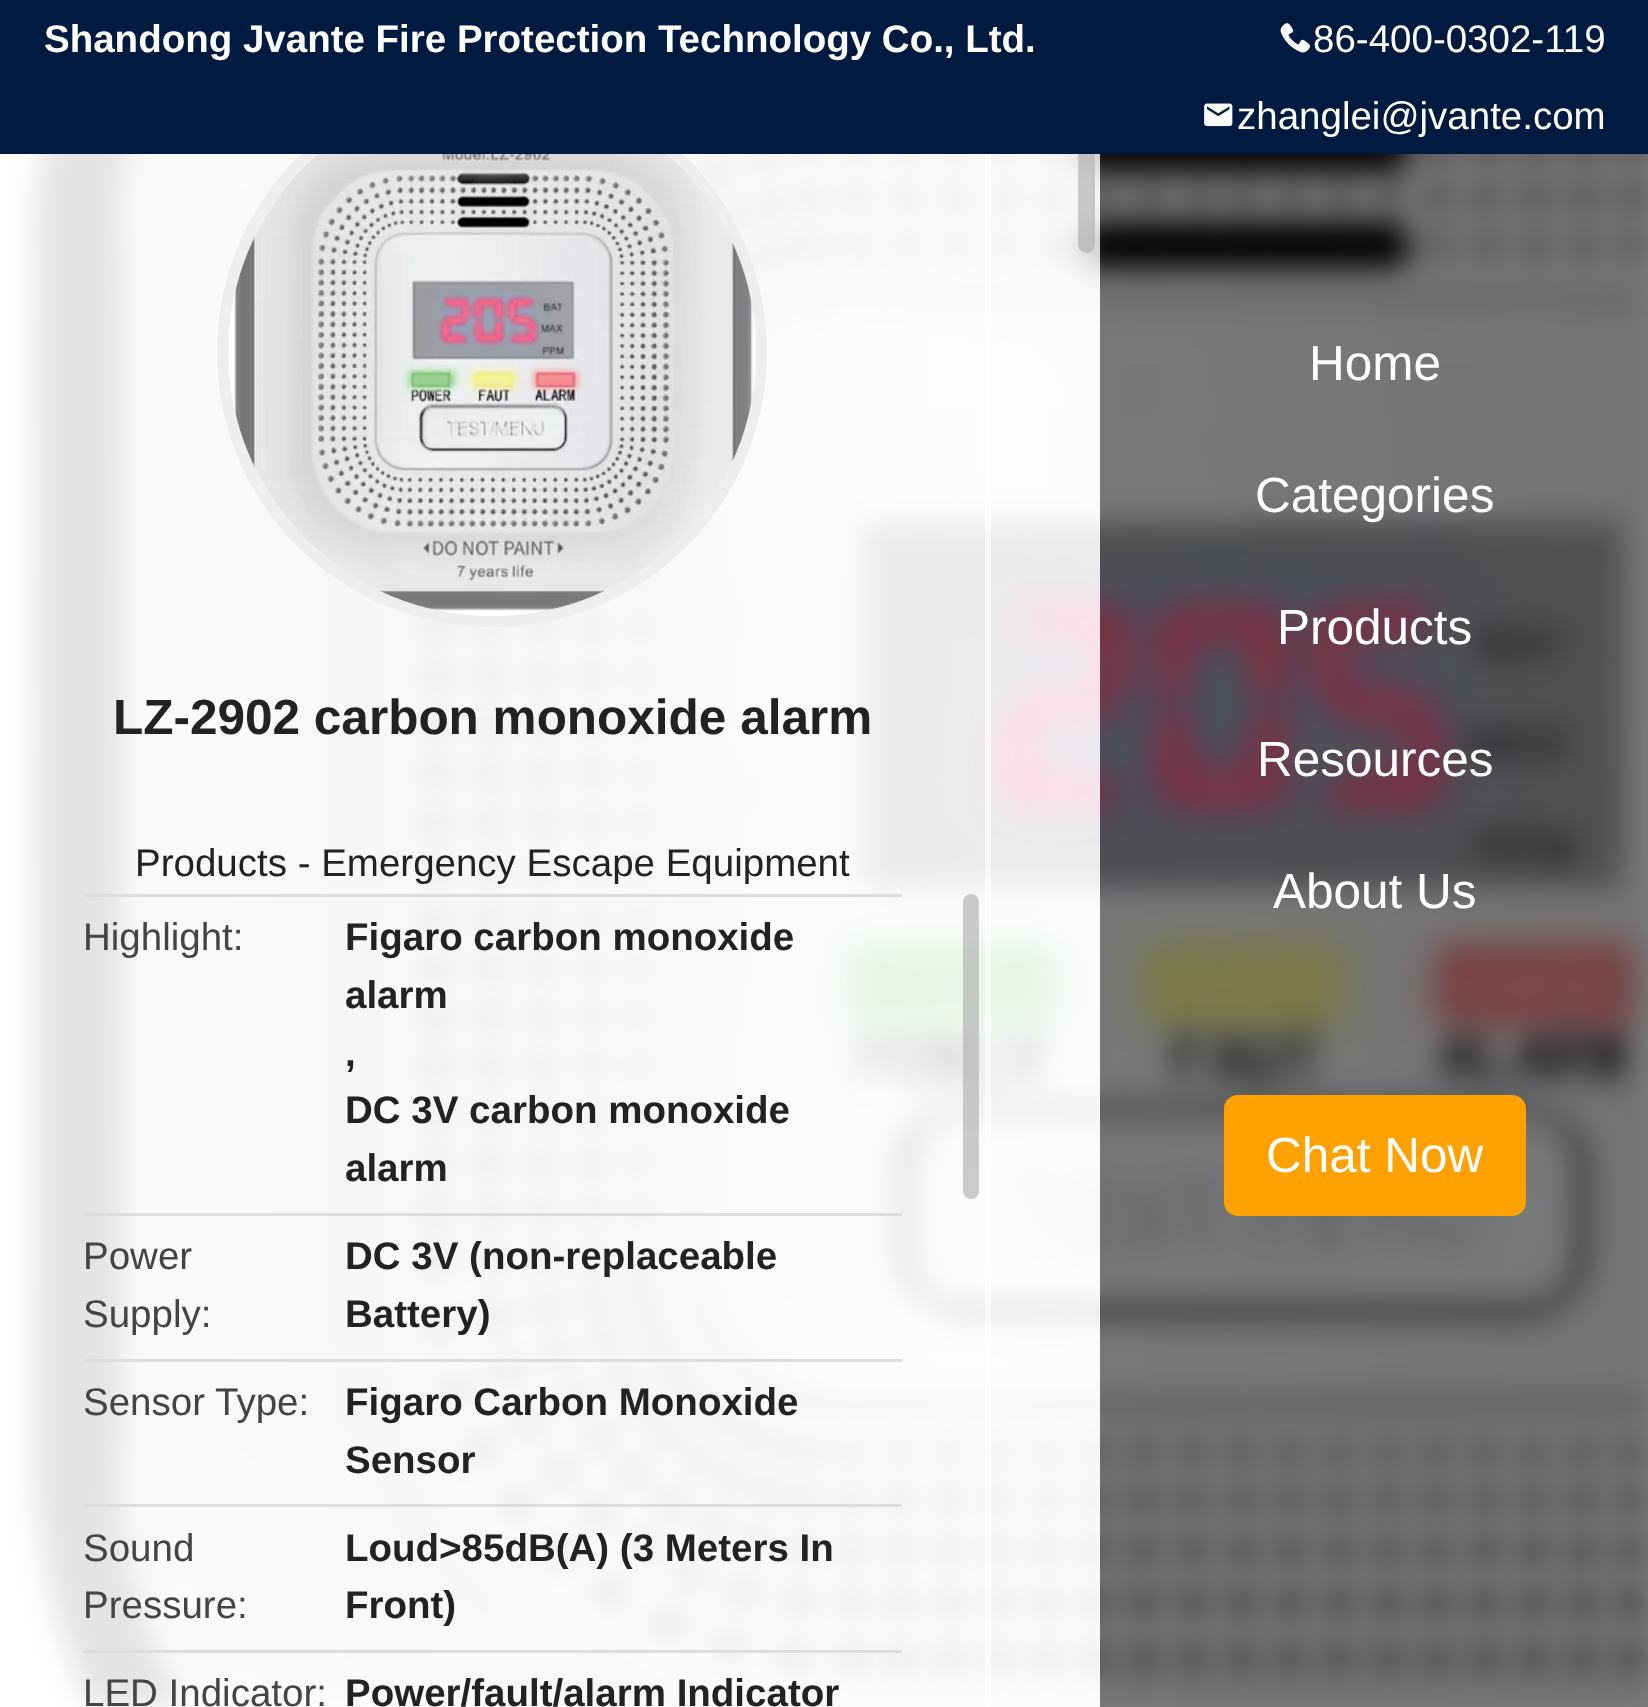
<!DOCTYPE html>
<meta charset="utf-8">
<style>body { margin: 0 } canvas { display: block }</style>
<canvas id="canvas" width="1648" height="1707"></canvas>
<script type="module">
  const canvas = document.getElementById("canvas");
  const ctx = canvas.getContext("2d");
  ctx.miterLimit = 4;
  ctx.fontKerning = "normal";
  async function loadImage(src) {
    const img = new Image();
    img.src = src;
    await img.decode();
    return img;
  }

  ctx.fillStyle = "#ffffff";
  ctx.fillRect(0, 0, 1648, 1707);
  ctx.drawImage(await loadImage("img3.png"), 7, 154, 1641, 1553);
  ctx.fillStyle = "rgba(255, 255, 255, 0.8)";
  ctx.fillRect(7, 154, 983, 1553);
  ctx.fillStyle = "rgba(255, 255, 255, 0.6)";
  ctx.fillRect(985, 154, 6, 1553);
  ctx.fillStyle = "rgba(255, 255, 255, 0.8)";
  ctx.fillRect(990, 154, 110, 1553);
  ctx.fillStyle = "rgba(170, 170, 170, 0.6)";
  ctx.beginPath();
  ctx.roundRect(1078, 77, 17, 176, 8.5);
  ctx.fill();
  ctx.beginPath();
  ctx.arc(492, 352, 269.5, 0, Math.PI * 2);
  ctx.strokeStyle = "#eeeeee";
  ctx.lineWidth = 11;
  ctx.stroke();
  ctx.fillStyle = "#001b3f";
  ctx.fillRect(0, 0, 1648, 154);
  ctx.font = "bold 38.5px Liberation Sans";
  ctx.fillStyle = "#ffffff";
  ctx.fillText("Shandong Jvante Fire Protection Technology Co., Ltd.", 44, 52);
  ctx.drawImage(await loadImage("img1.png"), 1280, 23, 30, 30);
  ctx.font = "38.5px Liberation Sans";
  ctx.fillText("86-400-0302-119", 1313, 52);
  ctx.drawImage(await loadImage("img2.png"), 1204, 103, 29, 24);
  ctx.fillText("zhanglei@jvante.com", 1237, 129);
  ctx.drawImage(await loadImage("img4.png"), 229, 154, 527, 462);
  ctx.font = "bold 49.5px Liberation Sans";
  ctx.fillStyle = "#222222";
  ctx.fillText("LZ-2902 carbon monoxide alarm", 113, 734);
  ctx.font = "38.5px Liberation Sans";
  ctx.fillText("Products - Emergency Escape Equipment", 135, 876);
  ctx.fillStyle = "#dddddd";
  ctx.fillRect(83, 894, 819, 3);
  ctx.fillStyle = "#444444";
  ctx.fillText("Highlight:", 83, 950);
  ctx.font = "bold 38.5px Liberation Sans";
  ctx.fillStyle = "#222222";
  ctx.fillText("Figaro carbon monoxide", 345, 950);
  ctx.fillText("alarm", 345, 1008);
  ctx.fillText(",", 345, 1066);
  ctx.fillText("DC 3V carbon monoxide", 345, 1123);
  ctx.fillText("alarm", 345, 1181);
  ctx.fillStyle = "#dddddd";
  ctx.fillRect(83, 1213, 819, 3);
  ctx.font = "38.5px Liberation Sans";
  ctx.fillStyle = "#444444";
  ctx.fillText("Power", 83, 1269);
  ctx.fillText("Supply:", 83, 1327);
  ctx.font = "bold 38.5px Liberation Sans";
  ctx.fillStyle = "#222222";
  ctx.fillText("DC 3V (non-replaceable", 345, 1269);
  ctx.fillText("Battery)", 345, 1327);
  ctx.fillStyle = "#dddddd";
  ctx.fillRect(83, 1359, 819, 3);
  ctx.font = "38.5px Liberation Sans";
  ctx.fillStyle = "#444444";
  ctx.fillText("Sensor Type:", 83, 1415);
  ctx.font = "bold 38.5px Liberation Sans";
  ctx.fillStyle = "#222222";
  ctx.fillText("Figaro Carbon Monoxide", 345, 1415);
  ctx.fillText("Sensor", 345, 1473);
  ctx.fillStyle = "#dddddd";
  ctx.fillRect(83, 1504, 819, 3);
  ctx.font = "38.5px Liberation Sans";
  ctx.fillStyle = "#444444";
  ctx.fillText("Sound", 83, 1561);
  ctx.fillText("Pressure:", 83, 1618);
  ctx.font = "bold 38.5px Liberation Sans";
  ctx.fillStyle = "#222222";
  ctx.fillText("Loud>85dB(A) (3 Meters In", 345, 1561);
  ctx.fillText("Front)", 345, 1618);
  ctx.fillStyle = "#dddddd";
  ctx.fillRect(83, 1650, 819, 3);
  ctx.font = "38.5px Liberation Sans";
  ctx.fillStyle = "#444444";
  ctx.fillText("LED Indicator:", 83, 1706);
  ctx.font = "bold 38.5px Liberation Sans";
  ctx.fillStyle = "#222222";
  ctx.fillText("Power/fault/alarm Indicator", 345, 1706);
  ctx.fillStyle = "rgba(170, 170, 170, 0.6)";
  ctx.beginPath();
  ctx.roundRect(963, 894, 16, 305, 8);
  ctx.fill();
  ctx.fillStyle = "rgba(0, 0, 0, 0.5)";
  ctx.fillRect(1100, 154, 548, 1553);
  ctx.font = "49.5px Liberation Sans";
  ctx.fillStyle = "#ffffff";
  ctx.fillText("Home", 1309, 380);
  ctx.fillText("Categories", 1255, 512);
  ctx.fillText("Products", 1277, 644);
  ctx.fillText("Resources", 1257, 776);
  ctx.fillText("About Us", 1273, 908);
  ctx.fillStyle = "#ffa100";
  ctx.beginPath();
  ctx.roundRect(1224, 1095, 302, 121, 14);
  ctx.fill();
  ctx.fillStyle = "#ffffff";
  ctx.fillText("Chat Now", 1266, 1172);
</script>
